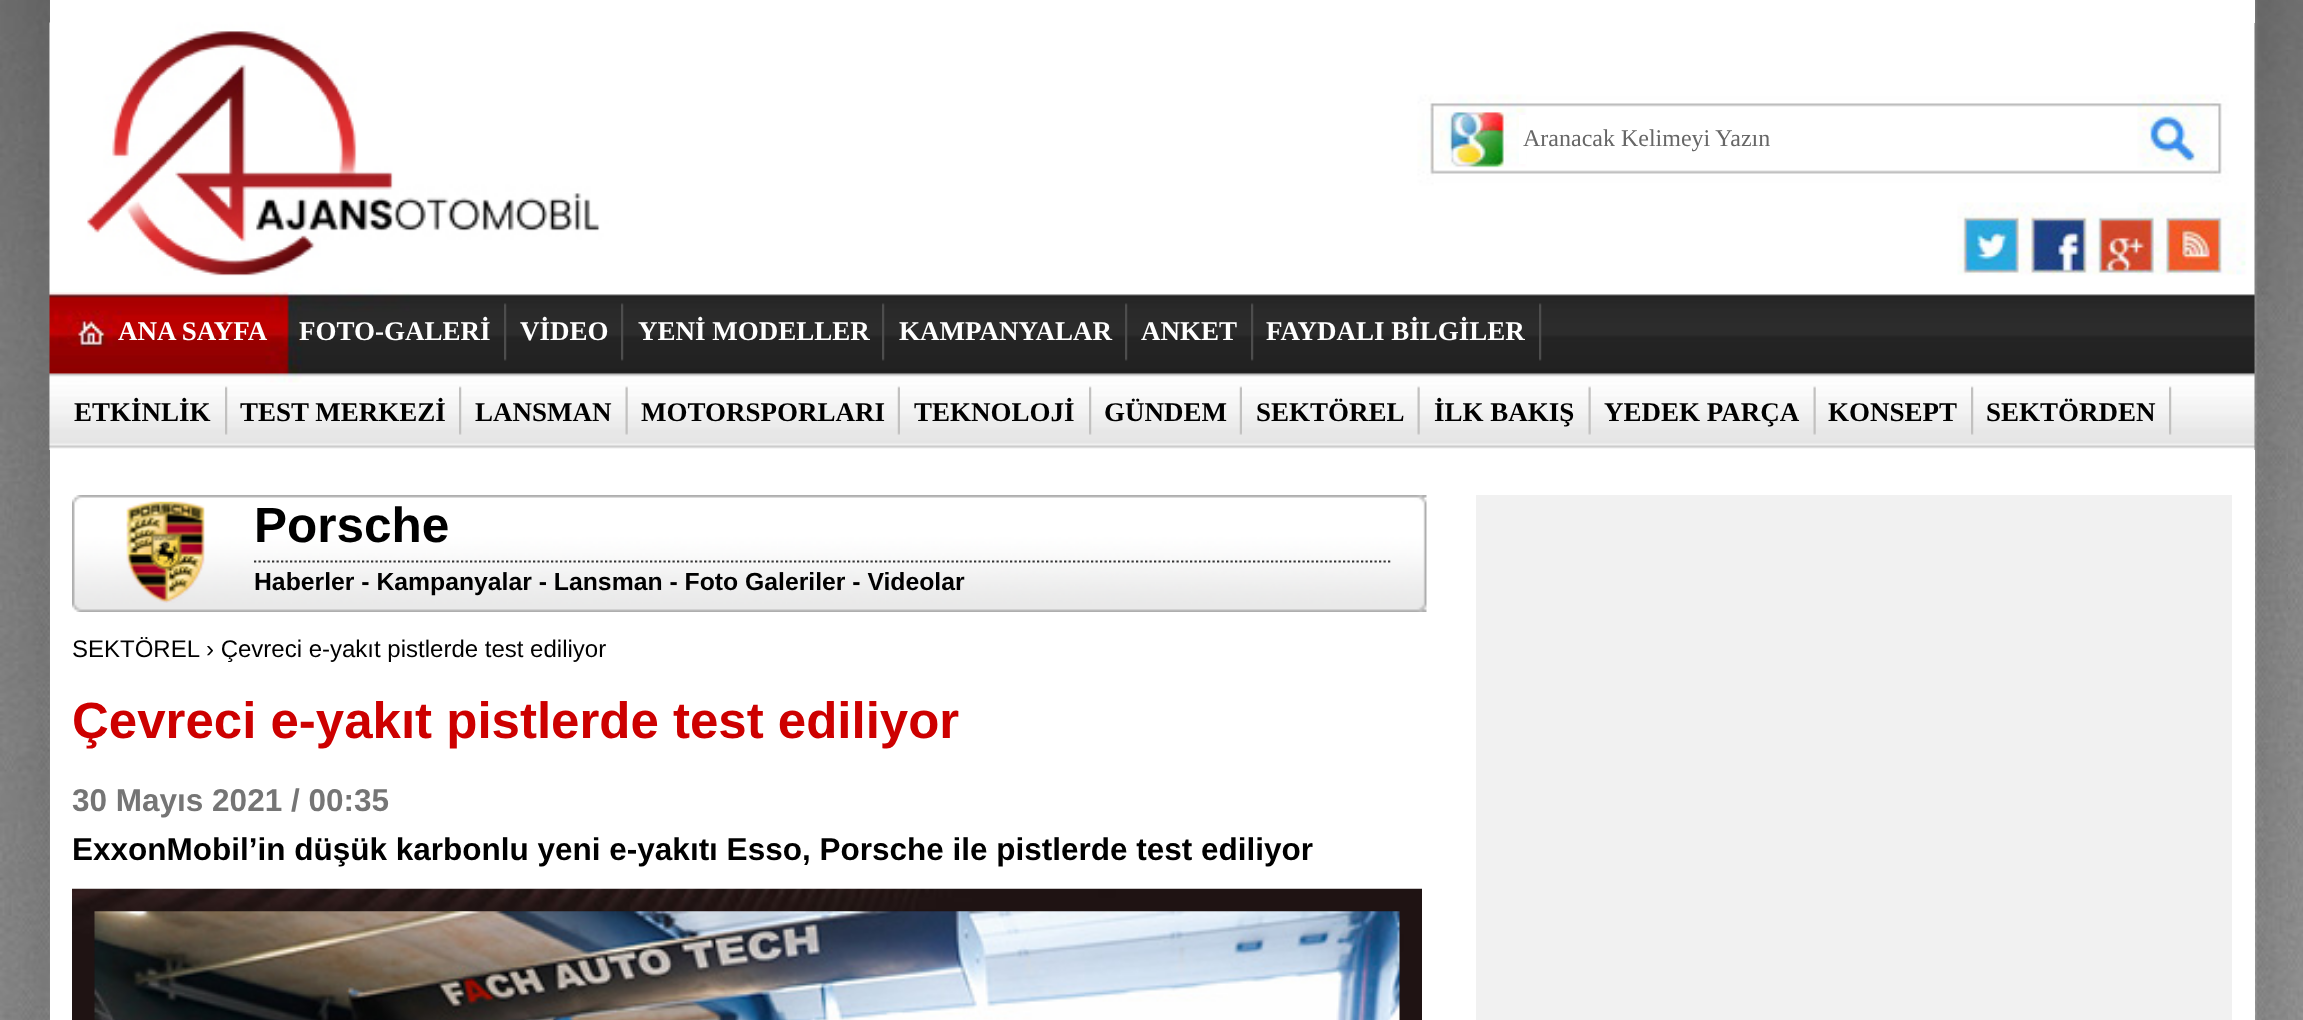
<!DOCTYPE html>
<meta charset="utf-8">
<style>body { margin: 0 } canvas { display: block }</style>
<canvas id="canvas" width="2303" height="1020"></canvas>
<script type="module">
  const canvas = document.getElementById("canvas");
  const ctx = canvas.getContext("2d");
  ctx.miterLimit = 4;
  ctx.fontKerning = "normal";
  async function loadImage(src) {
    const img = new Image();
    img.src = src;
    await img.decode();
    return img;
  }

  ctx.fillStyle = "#ffffff";
  ctx.fillRect(0, 0, 2303, 1020);
  ctx.drawImage(await loadImage("img1.png"), 0, 0, 2303, 1020);
  ctx.fillRect(50, 0, 2205, 23);
  ctx.drawImage(await loadImage("img2.png"), 49, 22, 2206, 428);
  ctx.fillRect(1519, 115, 7, 49);
  ctx.font = "24px Liberation Serif";
  ctx.fillStyle = "#676767";
  ctx.fillText("Aranacak Kelimeyi Yazın", 1523, 146);
  ctx.font = "bold 27px Liberation Serif";
  ctx.fillStyle = "#ffffff";
  ctx.fillText("ANA SAYFA", 118, 340);
  ctx.fillText("FOTO-GALERİ", 299, 340);
  ctx.drawImage(await loadImage("img3.png"), 504, 303, 3, 58);
  ctx.fillText("VİDEO", 520, 340);
  ctx.drawImage(await loadImage("img3.png"), 621, 303, 3, 58);
  ctx.fillText("YENİ MODELLER", 638, 340);
  ctx.drawImage(await loadImage("img3.png"), 882, 303, 3, 58);
  ctx.fillText("KAMPANYALAR", 899, 340);
  ctx.drawImage(await loadImage("img3.png"), 1125, 303, 3, 58);
  ctx.fillText("ANKET", 1141, 340);
  ctx.drawImage(await loadImage("img3.png"), 1251, 303, 3, 58);
  ctx.fillText("FAYDALI BİLGİLER", 1266, 340);
  ctx.drawImage(await loadImage("img3.png"), 1539, 303, 3, 58);
  ctx.fillStyle = "#000000";
  ctx.fillText("ETKİNLİK", 74, 421);
  ctx.drawImage(await loadImage("img4.png"), 225, 386, 3, 49);
  ctx.fillText("TEST MERKEZİ", 240, 421);
  ctx.drawImage(await loadImage("img4.png"), 459, 386, 3, 49);
  ctx.fillText("LANSMAN", 475, 421);
  ctx.drawImage(await loadImage("img5.png"), 625, 386, 3, 49);
  ctx.fillText("MOTORSPORLARI", 641, 421);
  ctx.drawImage(await loadImage("img6.png"), 897, 386, 3, 49);
  ctx.fillText("TEKNOLOJİ", 914, 421);
  ctx.drawImage(await loadImage("img4.png"), 1089, 386, 3, 49);
  ctx.fillText("GÜNDEM", 1104, 421);
  ctx.drawImage(await loadImage("img6.png"), 1239, 386, 3, 49);
  ctx.fillText("SEKTÖREL", 1256, 421);
  ctx.drawImage(await loadImage("img5.png"), 1417, 386, 3, 49);
  ctx.fillText("İLK BAKIŞ", 1434, 421);
  ctx.drawImage(await loadImage("img5.png"), 1588, 386, 3, 49);
  ctx.fillText("YEDEK PARÇA", 1604, 421);
  ctx.drawImage(await loadImage("img5.png"), 1813, 386, 3, 49);
  ctx.fillText("KONSEPT", 1828, 421);
  ctx.drawImage(await loadImage("img4.png"), 1971, 386, 3, 49);
  ctx.fillText("SEKTÖRDEN", 1986, 421);
  ctx.drawImage(await loadImage("img4.png"), 2169, 386, 3, 49);
  ctx.fillStyle = "#ffffff";
  ctx.fillRect(50, 450, 2205, 570);
  ctx.drawImage(await loadImage("img7.png"), 72, 495, 1355, 117);
  ctx.drawImage(await loadImage("img8.png"), 126, 501, 79, 102);
  ctx.beginPath();
  ctx.moveTo(254, 561.5);
  ctx.lineTo(1390.5, 561.5);
  ctx.strokeStyle = "#333333";
  ctx.lineWidth = 2.2;
  ctx.setLineDash([2.25, 2.25]);
  ctx.stroke();
  ctx.font = "bold 49.5px Liberation Sans";
  ctx.fillStyle = "#000000";
  ctx.fillText("Porsche", 254, 542);
  ctx.font = "bold 24.75px Liberation Sans";
  ctx.fillText("Haberler - Kampanyalar - Lansman - Foto Galeriler - Videolar", 254, 590);
  ctx.font = "24px Liberation Sans";
  ctx.fillText("SEKTÖREL", 72, 657);
  ctx.fillText("› Çevreci e-yakıt pistlerde test ediliyor", 206, 657);
  ctx.font = "bold 51px Liberation Sans";
  ctx.fillStyle = "#cd0000";
  ctx.fillText("Çevreci e-yakıt pistlerde test ediliyor", 72, 738);
  ctx.font = "bold 31.5px Liberation Sans";
  ctx.fillStyle = "#757575";
  ctx.fillText("30 Mayıs 2021 / 00:35", 72, 811);
  ctx.fillStyle = "#000000";
  ctx.fillText("ExxonMobil’in düşük karbonlu yeni e-yakıtı Esso, Porsche ile pistlerde test ediliyor", 72, 860);
  ctx.drawImage(await loadImage("img9.png"), 72, 888, 1350, 132);
  ctx.drawImage(await loadImage("img10.png"), 94, 911, 1306, 109);
  ctx.fillStyle = "#f1f1f1";
  ctx.fillRect(1476, 495, 756, 525);
</script>
